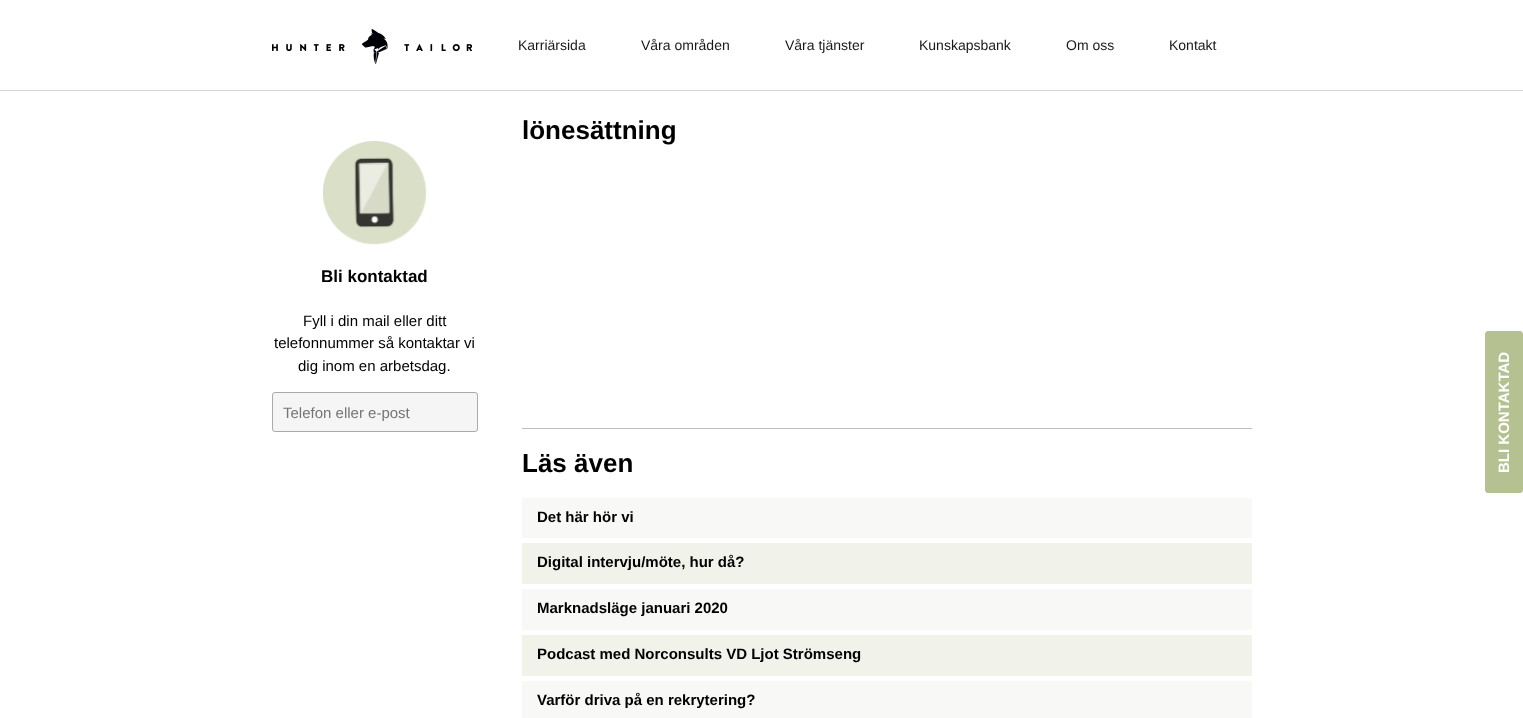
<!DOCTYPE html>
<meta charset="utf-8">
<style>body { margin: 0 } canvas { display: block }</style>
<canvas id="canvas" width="1523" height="718"></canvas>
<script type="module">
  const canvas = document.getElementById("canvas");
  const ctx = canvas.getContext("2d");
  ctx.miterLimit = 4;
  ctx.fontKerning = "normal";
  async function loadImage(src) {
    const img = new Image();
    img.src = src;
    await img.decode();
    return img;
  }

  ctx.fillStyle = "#ffffff";
  ctx.fillRect(0, 0, 1523, 718);
  ctx.fillStyle = "#d7d7d7";
  ctx.fillRect(0, 90, 1523, 1);
  ctx.drawImage(await loadImage("img1.png"), 272, 29, 200, 35);
  ctx.font = "14px Liberation Sans";
  ctx.fillStyle = "#181818";
  ctx.fillText("Karriärsida", 518, 50);
  ctx.fillText("Våra områden", 641, 50);
  ctx.fillText("Våra tjänster", 785, 50);
  ctx.fillText("Kunskapsbank", 919, 50);
  ctx.fillText("Om oss", 1066, 50);
  ctx.fillText("Kontakt", 1169, 50);
  ctx.drawImage(await loadImage("img2.png"), 323, 141, 104, 104);
  ctx.font = "bold 17px Liberation Sans";
  ctx.fillStyle = "#000000";
  ctx.fillText("Bli kontaktad", 321, 282);
  ctx.font = "15px Liberation Sans";
  ctx.fillText("Fyll i din mail eller ditt", 303, 326);
  ctx.fillText("telefonnummer så kontaktar vi", 274, 348);
  ctx.fillText("dig inom en arbetsdag.", 298, 371);
  ctx.fillStyle = "#f5f5f5";
  ctx.beginPath();
  ctx.roundRect(272.5, 392.5, 205, 39, 2.5);
  ctx.fill();
  ctx.strokeStyle = "#aaaaaa";
  ctx.stroke();
  ctx.fillStyle = "#757575";
  ctx.fillText("Telefon eller e-post", 283, 418);
  ctx.fillStyle = "#bdbdbd";
  ctx.fillRect(522, 428, 730, 1);
  ctx.font = "bold 26px Liberation Sans";
  ctx.fillStyle = "#000000";
  ctx.fillText("lönesättning", 522, 139);
  ctx.fillText("Läs även", 522, 472);
  ctx.fillStyle = "#f8f8f6";
  ctx.fillRect(522, 498, 730, 40);
  ctx.font = "bold 15px Liberation Sans";
  ctx.fillStyle = "#000000";
  ctx.fillText("Det här hör vi", 537, 522);
  ctx.fillStyle = "#f1f2ea";
  ctx.fillRect(522, 543, 730, 41);
  ctx.fillStyle = "#000000";
  ctx.fillText("Digital intervju/möte, hur då?", 537, 567);
  ctx.fillStyle = "#f8f8f6";
  ctx.fillRect(522, 589, 730, 41);
  ctx.fillStyle = "#000000";
  ctx.fillText("Marknadsläge januari 2020", 537, 613);
  ctx.fillStyle = "#f1f2ea";
  ctx.fillRect(522, 635, 730, 41);
  ctx.fillStyle = "#000000";
  ctx.fillText("Podcast med Norconsults VD Ljot Strömseng", 537, 659);
  ctx.fillStyle = "#f8f8f6";
  ctx.fillRect(522, 681, 730, 37);
  ctx.fillStyle = "#000000";
  ctx.fillText("Varför driva på en rekrytering?", 537, 705);
  ctx.fillStyle = "#b6c192";
  ctx.beginPath();
  ctx.moveTo(1485, 490);
  ctx.lineTo(1485, 334);
  ctx.bezierCurveTo(1485, 333, 1486, 331, 1488, 331);
  ctx.lineTo(1520, 331);
  ctx.bezierCurveTo(1522, 331, 1523, 333, 1523, 334);
  ctx.lineTo(1523, 490);
  ctx.bezierCurveTo(1523, 491, 1522, 493, 1520, 493);
  ctx.lineTo(1488, 493);
  ctx.bezierCurveTo(1486, 493, 1485, 491, 1485, 490);
  ctx.closePath();
  ctx.fill();
  ctx.fillStyle = "#ffffff";
  ctx.save();
  ctx.translate(1509, 473);
  ctx.rotate(-90 * Math.PI / 180);
  ctx.fillText("BLI KONTAKTAD", 0, 0);
  ctx.restore();
</script>
